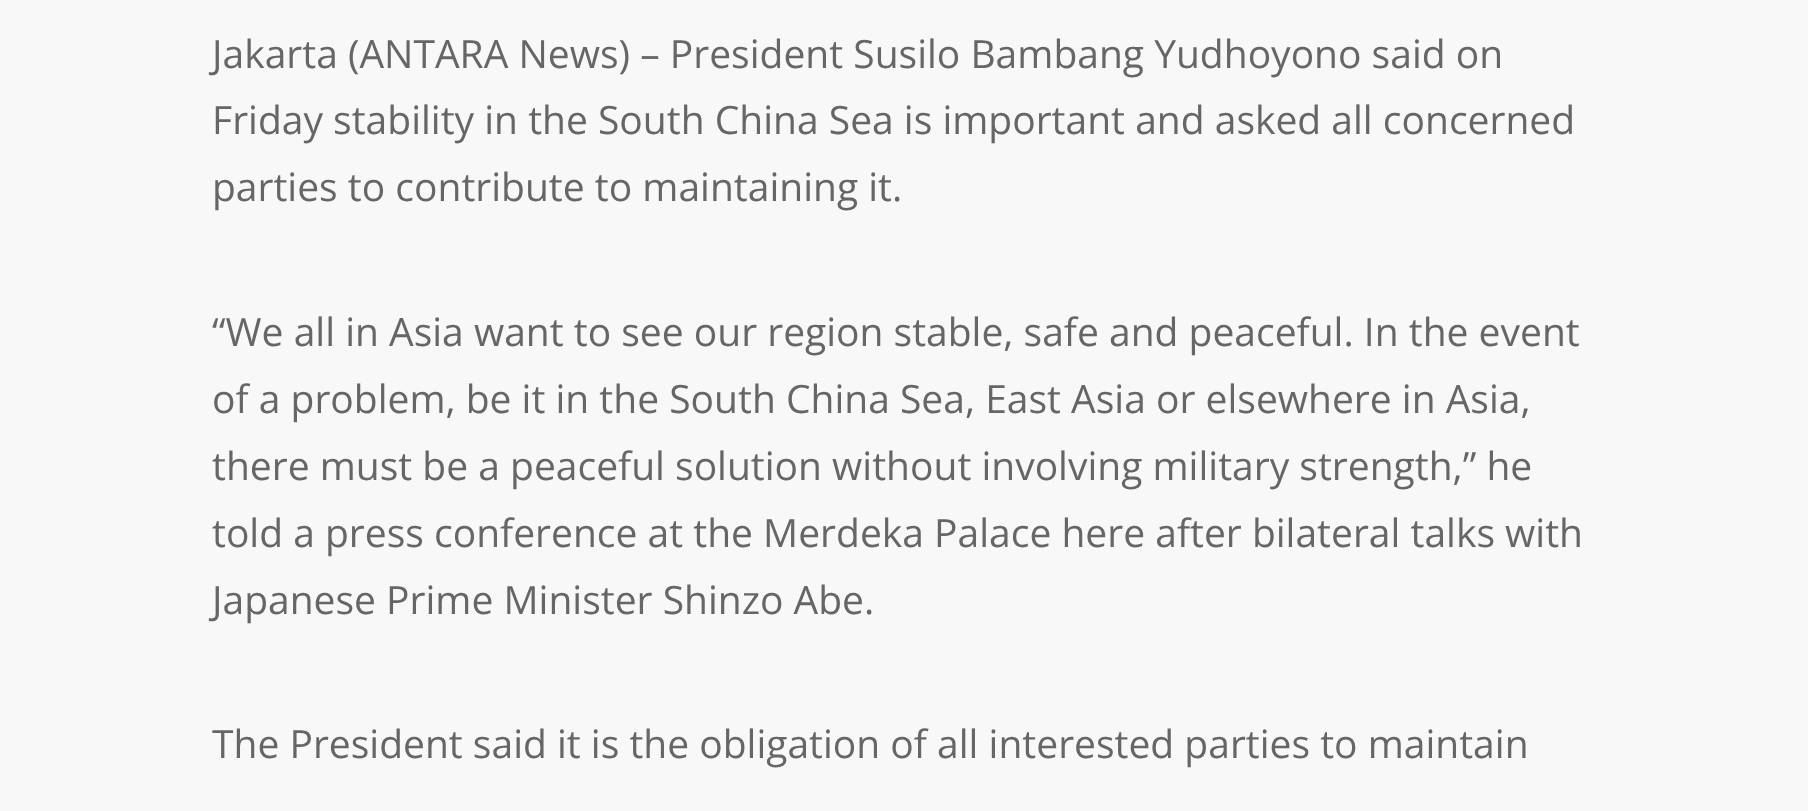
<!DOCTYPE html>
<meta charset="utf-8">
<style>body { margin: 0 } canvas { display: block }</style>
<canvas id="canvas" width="1808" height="811"></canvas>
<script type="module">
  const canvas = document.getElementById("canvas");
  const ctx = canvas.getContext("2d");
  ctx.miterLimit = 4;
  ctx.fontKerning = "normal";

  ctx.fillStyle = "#f8f8f8";
  ctx.fillRect(0, 0, 1808, 811);
  ctx.font = "39px Open Sans";
  ctx.fillStyle = "#666666";
  ctx.fillText("Jakarta (ANTARA News) – President Susilo Bambang Yudhoyono said on", 212, 68);
  ctx.fillText("Friday stability in the South China Sea is important and asked all concerned", 212, 134);
  ctx.fillText("parties to contribute to maintaining it.", 212, 201);
  ctx.fillText("“We all in Asia want to see our region stable, safe and peaceful. In the event", 212, 346);
  ctx.fillText("of a problem, be it in the South China Sea, East Asia or elsewhere in Asia,", 212, 413);
  ctx.fillText("there must be a peaceful solution without involving military strength,” he", 212, 480);
  ctx.fillText("told a press conference at the Merdeka Palace here after bilateral talks with", 212, 547);
  ctx.fillText("Japanese Prime Minister Shinzo Abe.", 212, 614);
  ctx.fillText("The President said it is the obligation of all interested parties to maintain", 212, 758);
</script>
